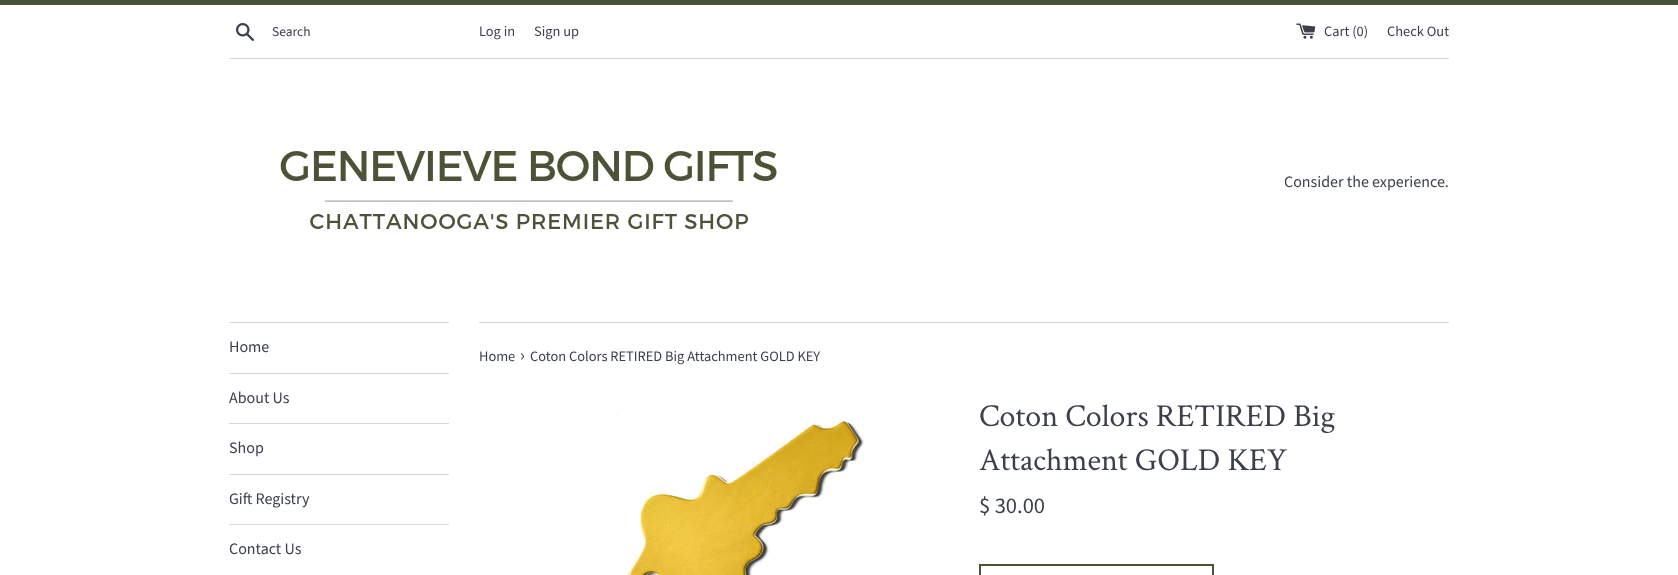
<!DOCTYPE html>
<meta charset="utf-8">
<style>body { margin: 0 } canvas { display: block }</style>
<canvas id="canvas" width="1678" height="575"></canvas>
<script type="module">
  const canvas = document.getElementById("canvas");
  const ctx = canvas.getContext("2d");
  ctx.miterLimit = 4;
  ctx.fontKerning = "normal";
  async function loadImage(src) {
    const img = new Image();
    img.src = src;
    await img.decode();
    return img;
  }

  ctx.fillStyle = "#ffffff";
  ctx.fillRect(0, 0, 1678, 575);
  ctx.fillStyle = "#4a5335";
  ctx.fillRect(0, 0, 1678, 5);
  ctx.drawImage(await loadImage("img1.png"), 236, 23, 18, 18);
  ctx.font = "13.5px Source Sans Pro";
  ctx.fillStyle = "#3c4049";
  ctx.fillText("Search", 272, 36);
  ctx.font = "14.4px Source Sans Pro";
  ctx.fillText("Log in", 479, 36);
  ctx.fillText("Sign up", 534, 36);
  ctx.drawImage(await loadImage("img2.png"), 1296, 23, 20, 16);
  ctx.fillText("Cart (0)", 1324, 36);
  ctx.fillText("Check Out", 1387, 36);
  ctx.fillStyle = "#d7d8d2";
  ctx.fillRect(229, 58, 1220, 1);
  ctx.drawImage(await loadImage("img3.png"), 277, 147, 500, 86);
  ctx.font = "16px Source Sans Pro";
  ctx.fillStyle = "#3c4049";
  ctx.fillText("Consider the experience.", 1284, 187);
  ctx.fillStyle = "#d7d8d2";
  ctx.fillRect(229, 322, 220, 1);
  ctx.fillRect(229, 373, 220, 1);
  ctx.fillStyle = "#3c4049";
  ctx.fillText("Home", 229, 352);
  ctx.fillStyle = "#d7d8d2";
  ctx.fillRect(229, 423, 220, 1);
  ctx.fillStyle = "#3c4049";
  ctx.fillText("About Us", 229, 403);
  ctx.fillStyle = "#d7d8d2";
  ctx.fillRect(229, 474, 220, 1);
  ctx.fillStyle = "#3c4049";
  ctx.fillText("Shop", 229, 453);
  ctx.fillStyle = "#d7d8d2";
  ctx.fillRect(229, 524, 220, 1);
  ctx.fillStyle = "#3c4049";
  ctx.fillText("Gift Registry", 229, 504);
  ctx.fillText("Contact Us", 229, 554);
  ctx.fillStyle = "#d7d8d2";
  ctx.fillRect(479, 322, 970, 1);
  ctx.font = "14.4px Source Sans Pro";
  ctx.fillStyle = "#3c4049";
  ctx.fillText("Home", 479, 361);
  ctx.font = "18px Source Sans Pro";
  ctx.fillText("›", 520, 361);
  ctx.font = "14.4px Source Sans Pro";
  ctx.fillText("Coton Colors RETIRED Big Attachment GOLD KEY", 530, 361);
  ctx.drawImage(await loadImage("img4.png"), 616, 412, 248, 163);
  ctx.font = "32px Crimson Text";
  ctx.fillText("Coton Colors RETIRED Big", 979, 426);
  ctx.fillText("Attachment GOLD KEY", 979, 470);
  ctx.font = "22.5px Source Sans Pro";
  ctx.fillText("$ 30.00", 979, 513);
  ctx.strokeStyle = "#4a5335";
  ctx.lineWidth = 2;
  ctx.strokeRect(980, 565, 233, 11);
</script>
